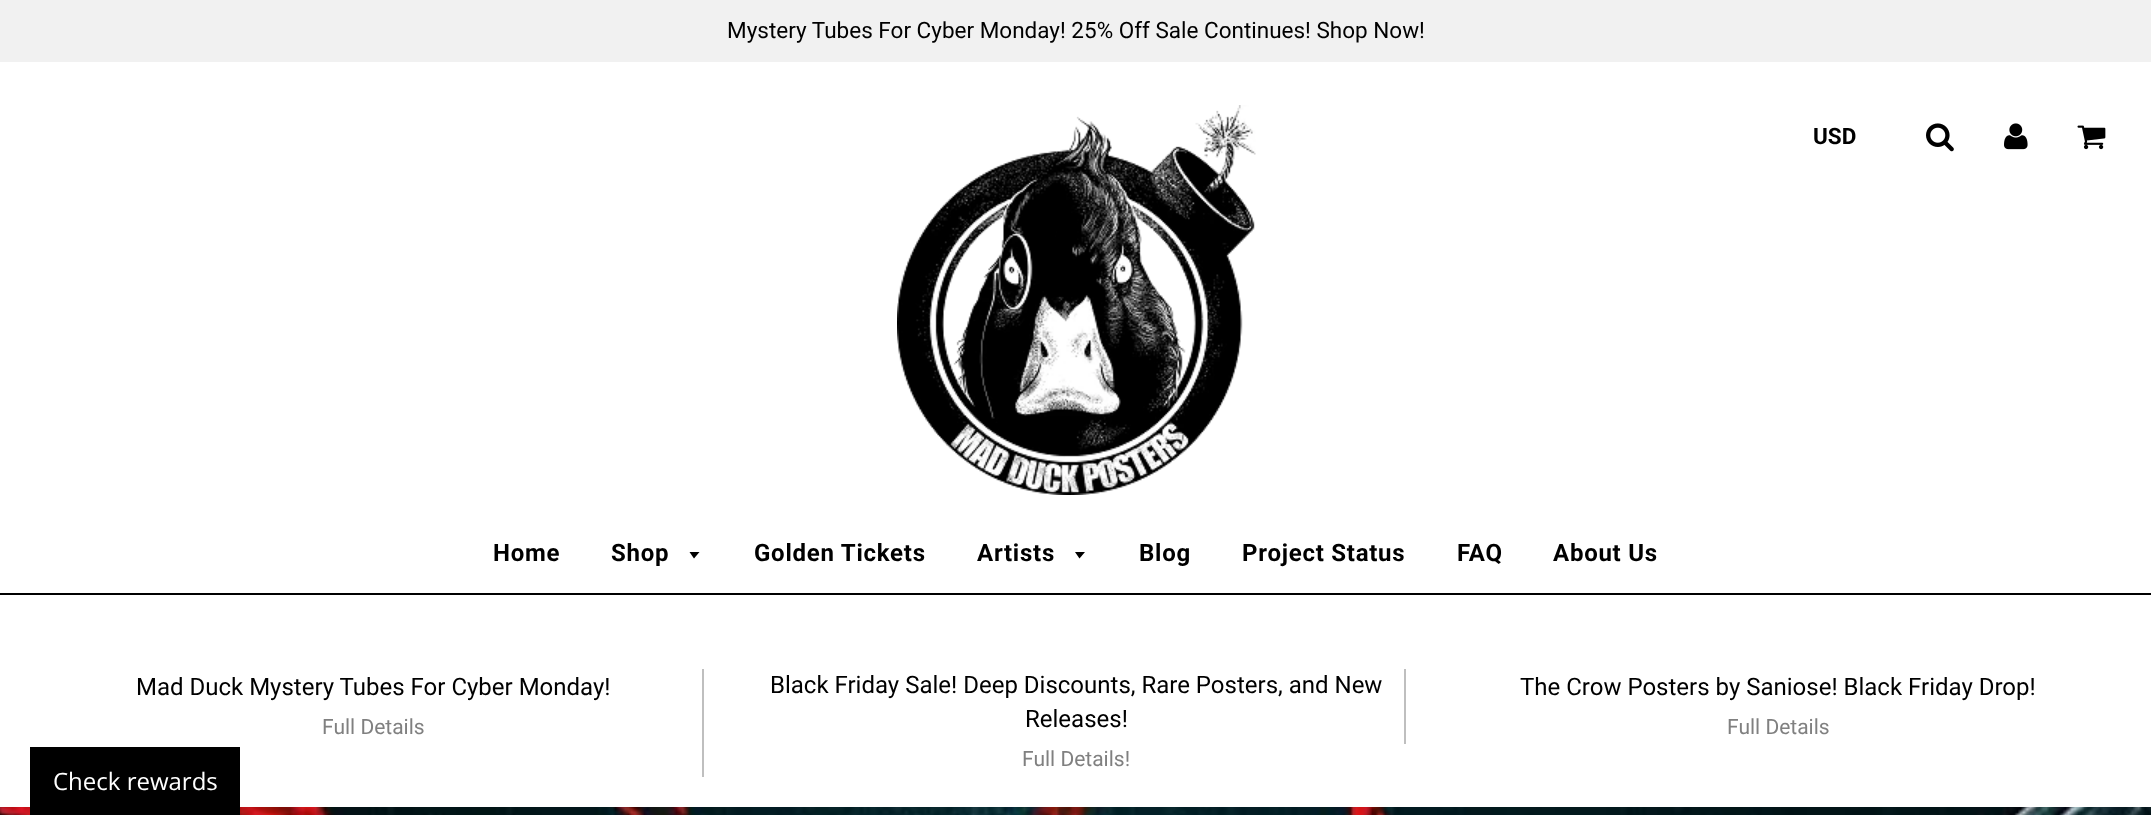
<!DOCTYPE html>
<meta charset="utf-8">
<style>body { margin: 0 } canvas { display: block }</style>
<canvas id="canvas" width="2151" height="815"></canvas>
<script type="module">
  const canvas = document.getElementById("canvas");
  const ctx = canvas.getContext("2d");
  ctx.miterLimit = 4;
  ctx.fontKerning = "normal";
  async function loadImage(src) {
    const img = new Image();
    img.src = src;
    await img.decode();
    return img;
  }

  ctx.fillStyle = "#ffffff";
  ctx.fillRect(0, 0, 2151, 815);
  ctx.fillStyle = "#f1f1f1";
  ctx.fillRect(0, 0, 2151, 62);
  ctx.font = "22.5px Roboto";
  ctx.fillStyle = "#000000";
  ctx.fillText("Mystery Tubes For Cyber Monday! 25% Off Sale Continues! Shop Now!", 727, 38);
  ctx.fillRect(0, 593, 2151, 2);
  ctx.drawImage(await loadImage("img1.png"), 897, 105, 359, 390);
  ctx.font = "bold 22.5px Roboto";
  ctx.fillText("USD", 1813, 144);
  ctx.drawImage(await loadImage("img2.png"), 1926, 123, 28, 29);
  ctx.drawImage(await loadImage("img3.png"), 2004, 123, 24, 27);
  ctx.drawImage(await loadImage("img4.png"), 2077, 125, 29, 25);
  ctx.letterSpacing = "0.75px";
  ctx.font = "bold 24px Roboto";
  ctx.fillText("Home", 493, 561);
  ctx.fillText("Shop", 611, 561);
  ctx.beginPath();
  ctx.moveTo(689.5, 552);
  ctx.lineTo(694, 558.5);
  ctx.lineTo(699.5, 552);
  ctx.closePath();
  ctx.fill();
  ctx.fillText("Golden Tickets", 754, 561);
  ctx.fillText("Artists", 977, 561);
  ctx.beginPath();
  ctx.moveTo(1075, 552);
  ctx.lineTo(1079.5, 558.5);
  ctx.lineTo(1085, 552);
  ctx.closePath();
  ctx.fill();
  ctx.fillText("Blog", 1139, 561);
  ctx.fillText("Project Status", 1242, 561);
  ctx.fillText("FAQ", 1457, 561);
  ctx.fillText("About Us", 1553, 561);
  ctx.letterSpacing = "0px";
  ctx.font = "24px Roboto";
  ctx.fillText("Mad Duck Mystery Tubes For Cyber Monday!", 136, 695);
  ctx.font = "21px Roboto";
  ctx.fillStyle = "#808080";
  ctx.fillText("Full Details", 322, 734);
  ctx.fillStyle = "#bfbfbf";
  ctx.fillRect(702, 669, 2, 108);
  ctx.font = "24px Roboto";
  ctx.fillStyle = "#000000";
  ctx.fillText("Black Friday Sale! Deep Discounts, Rare Posters, and New", 770, 693);
  ctx.fillText("Releases!", 1025, 727);
  ctx.font = "21px Roboto";
  ctx.fillStyle = "#808080";
  ctx.fillText("Full Details!", 1022, 766);
  ctx.fillStyle = "#bfbfbf";
  ctx.fillRect(1404, 669, 2, 75);
  ctx.font = "24px Roboto";
  ctx.fillStyle = "#000000";
  ctx.fillText("The Crow Posters by Saniose! Black Friday Drop!", 1520, 695);
  ctx.font = "21px Roboto";
  ctx.fillStyle = "#808080";
  ctx.fillText("Full Details", 1727, 734);
  ctx.drawImage(await loadImage("img5.png"), 0, 807, 2151, 8);
  ctx.fillStyle = "#000000";
  ctx.fillRect(30, 747, 210, 68);
  ctx.font = "24px Open Sans";
  ctx.fillStyle = "#ffffff";
  ctx.fillText("Check rewards", 53, 790);
</script>
